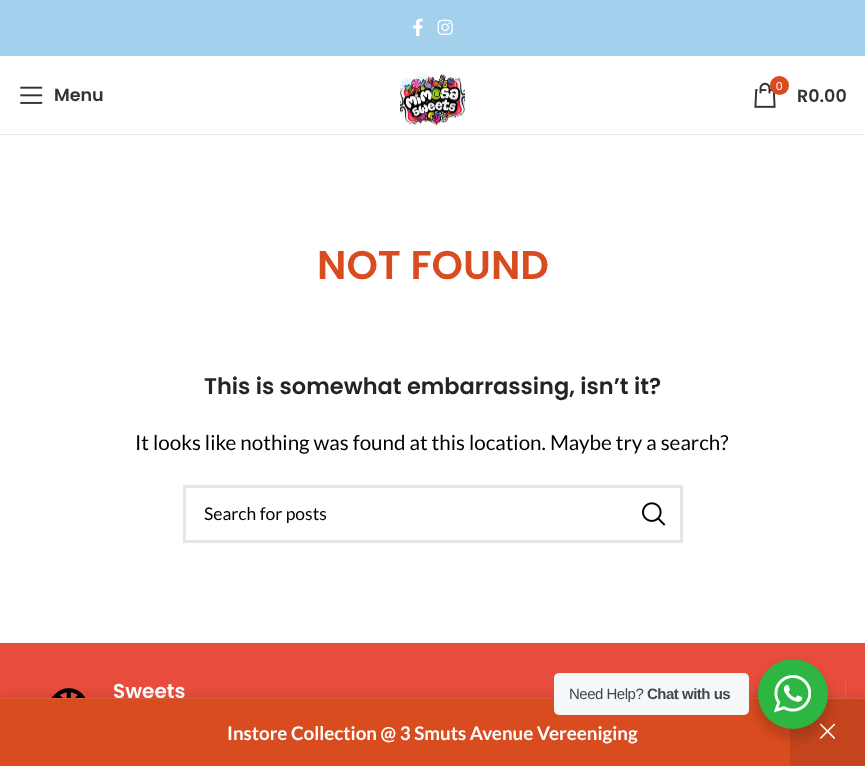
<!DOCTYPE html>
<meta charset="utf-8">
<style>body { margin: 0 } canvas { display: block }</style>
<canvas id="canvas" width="865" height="766"></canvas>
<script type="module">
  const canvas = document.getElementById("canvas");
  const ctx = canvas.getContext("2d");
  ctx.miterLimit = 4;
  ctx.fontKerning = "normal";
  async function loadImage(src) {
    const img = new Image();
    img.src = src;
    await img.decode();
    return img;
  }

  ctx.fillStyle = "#ffffff";
  ctx.fillRect(0, 0, 865, 766);
  ctx.fillStyle = "#a3d0ed";
  ctx.fillRect(0, 0, 865, 56);
  ctx.drawImage(await loadImage("img1.png"), 413, 18, 10, 19);
  ctx.drawImage(await loadImage("img2.png"), 437, 19, 16, 16);
  ctx.fillStyle = "#e6e6e6";
  ctx.fillRect(0, 134, 865, 1);
  ctx.drawImage(await loadImage("img3.png"), 20, 86, 23, 18);
  ctx.font = "600 17.5px Poppins";
  ctx.fillStyle = "#333333";
  ctx.fillText("Menu", 54, 101);
  ctx.drawImage(await loadImage("img4.png"), 400, 71, 65, 55);
  ctx.drawImage(await loadImage("img5.png"), 754, 82, 22, 26);
  ctx.fillStyle = "#d94c20";
  ctx.beginPath();
  ctx.arc(779.5, 85.5, 9.5, 0, Math.PI * 2);
  ctx.fill();
  ctx.font = "11px Lato";
  ctx.fillStyle = "#ffffff";
  ctx.fillText("0", 776, 90);
  ctx.font = "600 17.5px Poppins";
  ctx.fillStyle = "#333333";
  ctx.fillText("R0.00", 797, 102);
  ctx.font = "600 40px Poppins";
  ctx.fillStyle = "#d94c20";
  ctx.fillText("NOT FOUND", 317, 279);
  ctx.font = "600 22.5px Poppins";
  ctx.fillStyle = "#242424";
  ctx.fillText("This is somewhat embarrassing, isn’t it?", 204, 394);
  ctx.font = "20.6px Lato";
  ctx.fillStyle = "#000000";
  ctx.fillText("It looks like nothing was found at this location. Maybe try a search?", 135, 450);
  ctx.strokeStyle = "#e6e6e6";
  ctx.lineWidth = 3;
  ctx.strokeRect(184.5, 486.5, 497, 55);
  ctx.font = "17.5px Lato";
  ctx.fillText("Search for posts", 204, 520);
  ctx.drawImage(await loadImage("img6.png"), 642, 502, 24, 24);
  ctx.fillStyle = "#e74c3c";
  ctx.fillRect(0, 643, 865, 55);
  ctx.fillStyle = "#e95e50";
  ctx.fillRect(845, 680, 1, 18);
  ctx.drawImage(await loadImage("img7.png"), 51, 688, 35, 10);
  ctx.font = "600 20px Poppins";
  ctx.fillStyle = "#ffffff";
  ctx.fillText("Sweets", 113, 698);
  ctx.fillStyle = "rgba(0, 0, 0, 0.12)";
  ctx.filter = "blur(5.5px)";
  ctx.beginPath();
  ctx.rect(0, 698, 865, 68);
  ctx.fill();
  ctx.filter = "none";
  ctx.fillStyle = "#d94c20";
  ctx.fillRect(0, 699, 790, 67);
  ctx.fillStyle = "#dd5e36";
  ctx.fillRect(0, 698, 865, 1);
  ctx.fillStyle = "#c3441d";
  ctx.fillRect(790, 699, 75, 67);
  ctx.drawImage(await loadImage("img9.png"), 819, 723, 17, 16);
  ctx.fillStyle = "rgba(0, 0, 0, 0.14)";
  ctx.filter = "blur(5px)";
  ctx.beginPath();
  ctx.roundRect(755, 664, 75, 75, 37.5);
  ctx.fill();
  ctx.filter = "none";
  ctx.fillStyle = "#f5f7f9";
  ctx.beginPath();
  ctx.roundRect(554, 673, 195, 42, 5);
  ctx.fill();
  ctx.letterSpacing = "-0.5px";
  ctx.font = "15px Liberation Sans";
  ctx.fillStyle = "#43474e";
  ctx.fillText("Need Help?", 569, 699);
  ctx.font = "bold 15px Liberation Sans";
  ctx.fillText("Chat with us", 647, 699);
  ctx.fillStyle = "#2db742";
  ctx.beginPath();
  ctx.arc(793, 694, 35, 0, Math.PI * 2);
  ctx.fill();
  ctx.drawImage(await loadImage("img8.png"), 774, 675, 37, 38);
  ctx.letterSpacing = "0px";
  ctx.font = "bold 18.75px Lato";
  ctx.fillStyle = "#ffffff";
  ctx.fillText("Instore Collection @ 3 Smuts Avenue Vereeniging", 227, 740);
</script>
